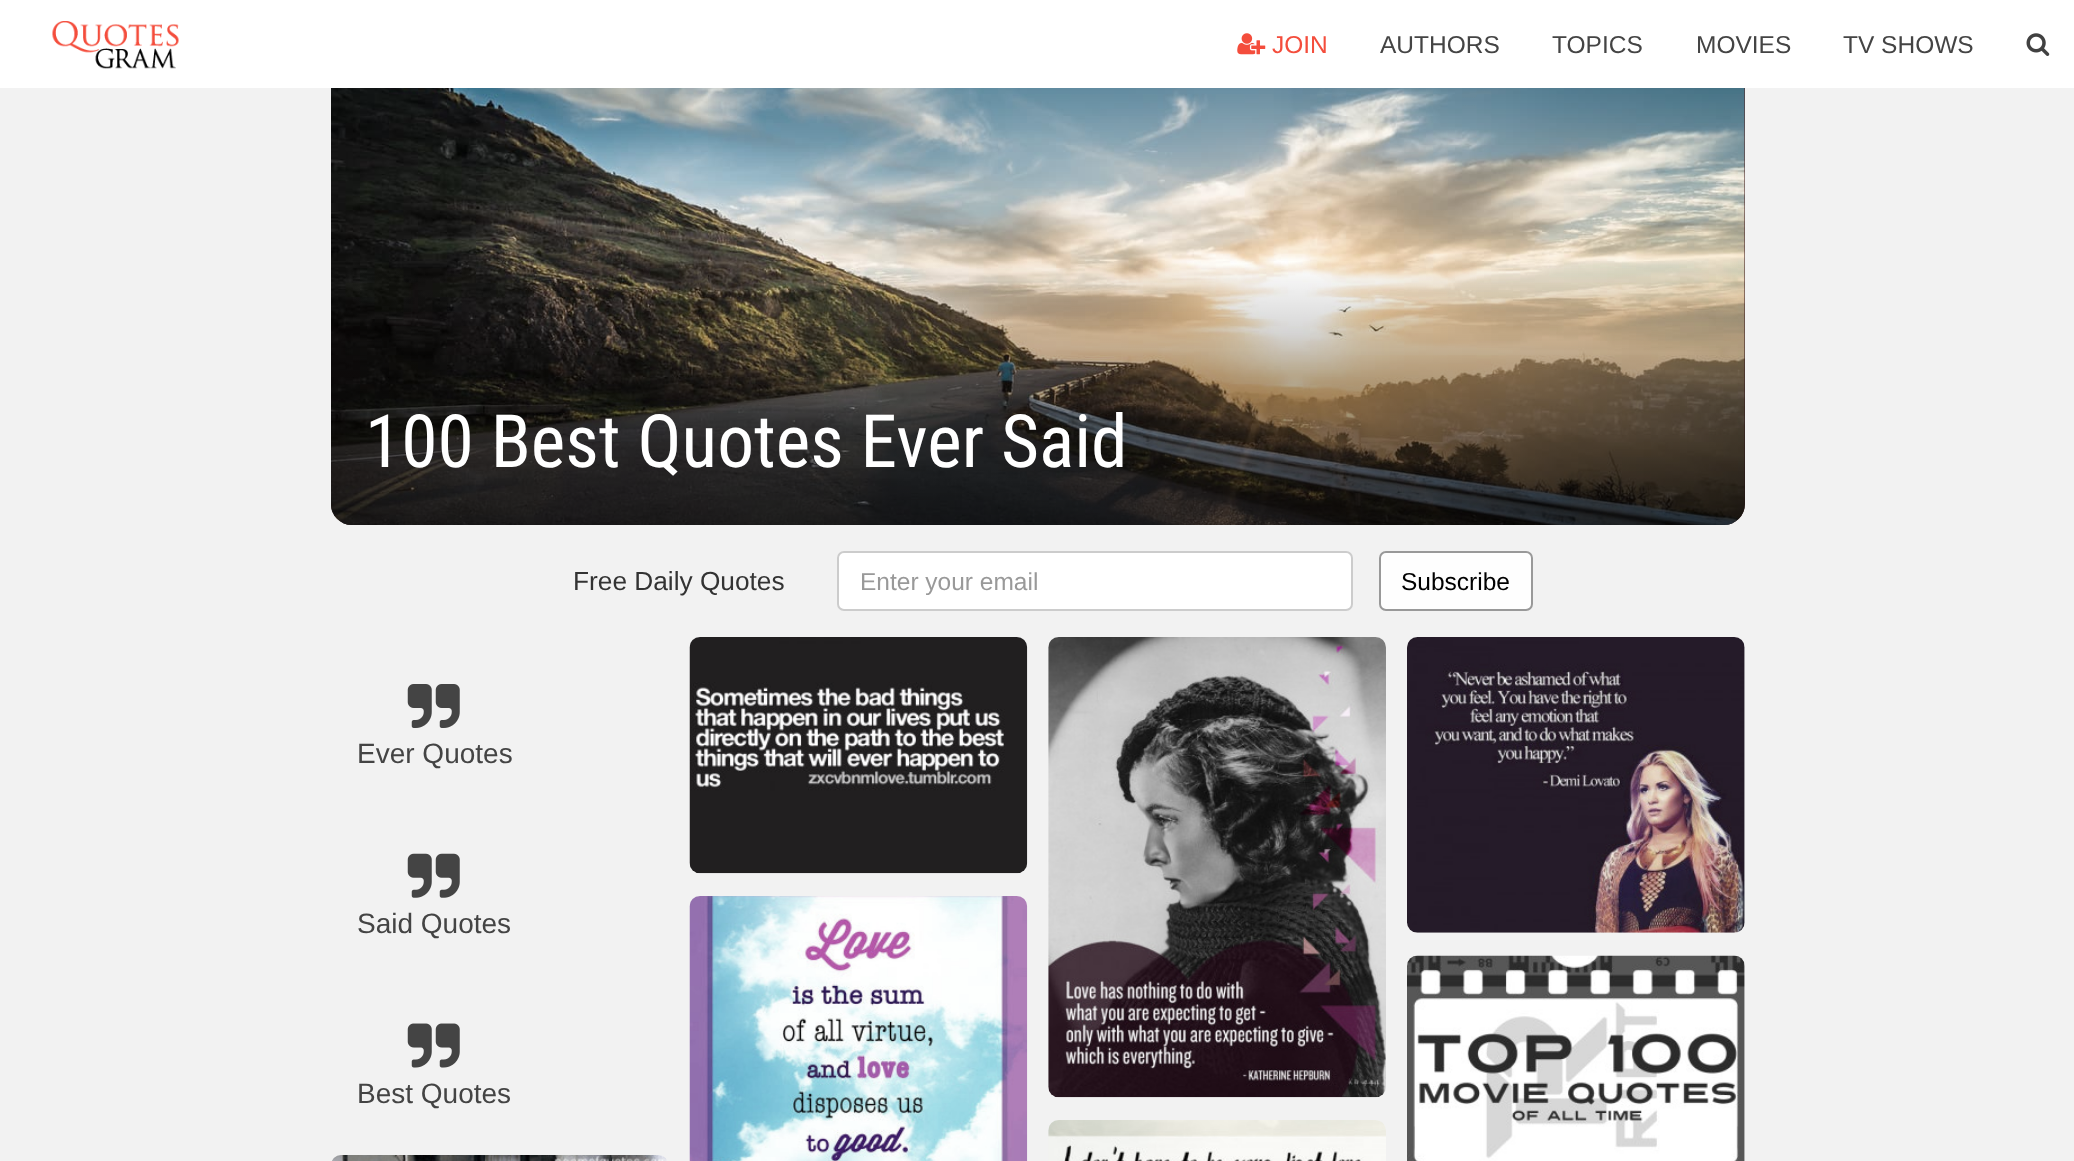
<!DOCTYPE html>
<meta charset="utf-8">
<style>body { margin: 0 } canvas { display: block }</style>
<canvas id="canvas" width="2074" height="1161"></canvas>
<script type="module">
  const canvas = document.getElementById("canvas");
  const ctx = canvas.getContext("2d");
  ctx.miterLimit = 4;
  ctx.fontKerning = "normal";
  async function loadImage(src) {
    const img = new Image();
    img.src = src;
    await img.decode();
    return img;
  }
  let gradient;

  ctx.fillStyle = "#f2f2f2";
  ctx.fillRect(0, 0, 2074, 1161);
  ctx.fillStyle = "#ffffff";
  ctx.fillRect(0, 0, 2074, 88);
  ctx.drawImage(await loadImage("img1.png"), 52, 21, 127, 48);
  ctx.drawImage(await loadImage("img2.png"), 1237, 33, 29, 22);
  ctx.font = "24.5px Liberation Sans";
  ctx.fillStyle = "#f44d3c";
  ctx.fillText("JOIN", 1272, 53);
  ctx.fillStyle = "#444444";
  ctx.fillText("AUTHORS", 1380, 53);
  ctx.fillText("TOPICS", 1552, 53);
  ctx.fillText("MOVIES", 1696, 53);
  ctx.fillText("TV SHOWS", 1843, 53);
  ctx.drawImage(await loadImage("img3.png"), 2026, 33, 24, 23);
  ctx.fillStyle = "#4e2b2b";
  ctx.beginPath();
  ctx.roundRect(331, 88, 1414, 437, [0, 0, 21, 21]);
  ctx.fill();
  ctx.drawImage(await loadImage("img4.png"), 331, 88, 1414, 437);
  gradient = ctx.createLinearGradient(1038, 261, 1038, 525);
  gradient.addColorStop(0, "rgba(0, 0, 0, 0)");
  gradient.addColorStop(1, "rgba(0, 0, 0, 0.6)");
  ctx.fillStyle = gradient;
  ctx.beginPath();
  ctx.roundRect(331, 261, 1414, 264, [0, 0, 21, 21]);
  ctx.fill();
  ctx.font = "73.5px Roboto Condensed";
  ctx.fillStyle = "#ffffff";
  ctx.fillText("100 Best Quotes Ever Said", 365, 467);
  ctx.font = "26.25px Liberation Sans";
  ctx.fillStyle = "#333333";
  ctx.fillText("Free Daily Quotes", 573, 590);
  ctx.fillStyle = "#ffffff";
  ctx.beginPath();
  ctx.roundRect(838, 552, 514, 58, 6);
  ctx.fill();
  ctx.strokeStyle = "#cccccc";
  ctx.lineWidth = 2;
  ctx.stroke();
  ctx.font = "24.5px Liberation Sans";
  ctx.fillStyle = "#999999";
  ctx.fillText("Enter your email", 860, 590);
  ctx.fillStyle = "#fefefe";
  ctx.beginPath();
  ctx.roundRect(1380, 552, 152, 58, 6);
  ctx.fill();
  ctx.strokeStyle = "#999999";
  ctx.stroke();
  ctx.fillStyle = "#000000";
  ctx.fillText("Subscribe", 1401, 590);
  ctx.drawImage(await loadImage("img5.png"), 407, 684, 53, 44);
  ctx.font = "28px Liberation Sans";
  ctx.fillStyle = "#444444";
  ctx.fillText("Ever Quotes", 357, 763);
  ctx.drawImage(await loadImage("img6.png"), 689, 637, 339, 237);
  ctx.drawImage(await loadImage("img7.png"), 1048, 637, 338, 461);
  ctx.drawImage(await loadImage("img8.png"), 1407, 637, 338, 296);
  ctx.drawImage(await loadImage("img9.png"), 407, 853, 53, 45);
  ctx.fillText("Said Quotes", 357, 933);
  ctx.drawImage(await loadImage("img10.png"), 689, 896, 339, 265);
  ctx.drawImage(await loadImage("img11.png"), 407, 1023, 53, 45);
  ctx.fillText("Best Quotes", 357, 1103);
  ctx.drawImage(await loadImage("img12.png"), 1407, 955, 338, 206);
  ctx.drawImage(await loadImage("img13.png"), 332, 1155, 335, 6);
  ctx.drawImage(await loadImage("img14.png"), 1048, 1120, 338, 41);
</script>
